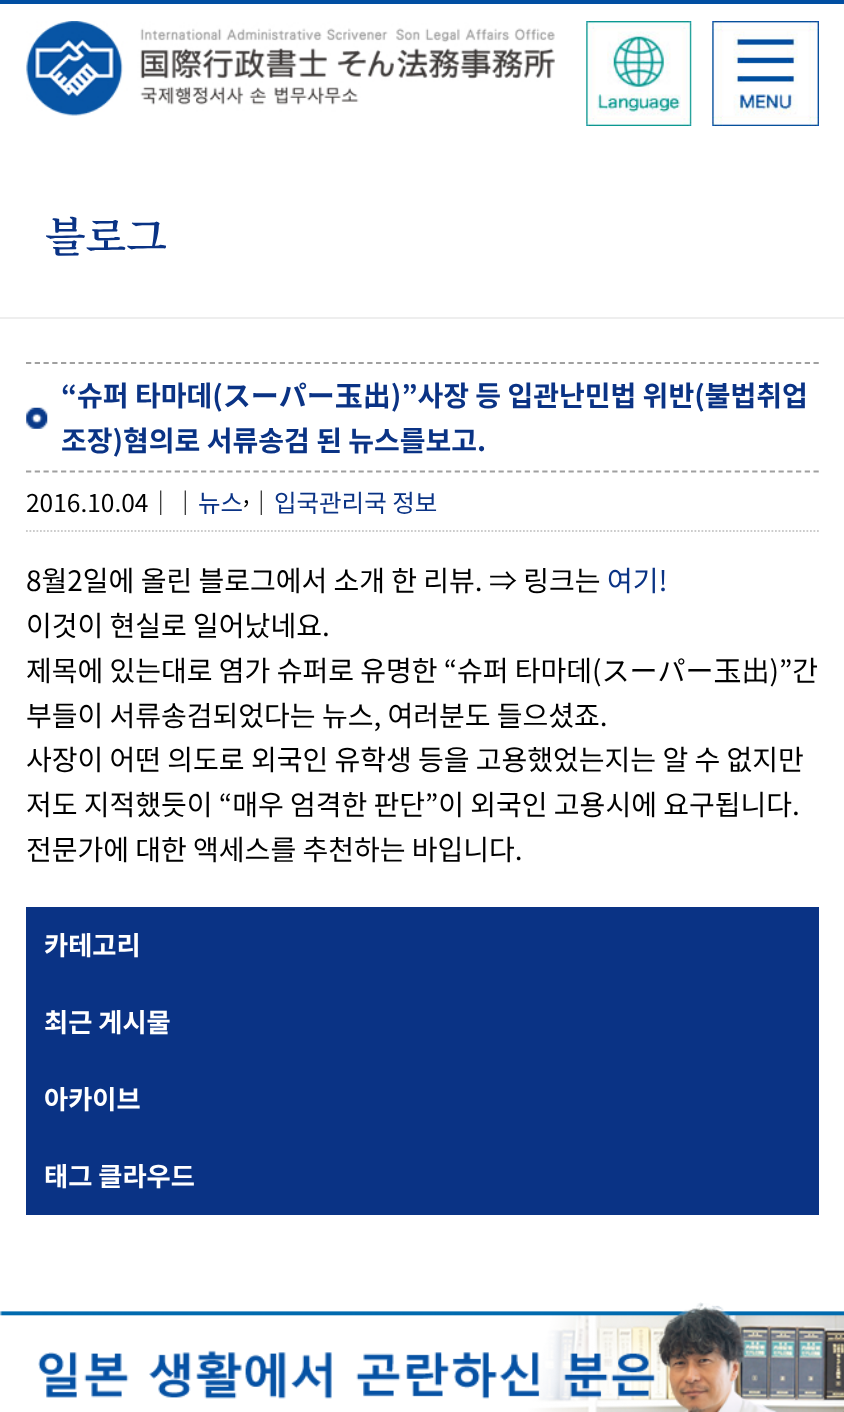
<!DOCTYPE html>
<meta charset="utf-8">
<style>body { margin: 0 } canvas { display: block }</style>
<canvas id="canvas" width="844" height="1412"></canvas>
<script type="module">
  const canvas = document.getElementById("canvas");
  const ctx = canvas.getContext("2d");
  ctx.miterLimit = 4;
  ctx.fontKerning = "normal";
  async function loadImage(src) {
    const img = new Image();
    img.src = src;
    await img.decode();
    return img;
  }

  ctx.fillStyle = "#ffffff";
  ctx.fillRect(0, 0, 844, 1412);
  ctx.fillStyle = "#004ea2";
  ctx.fillRect(0, 0, 844, 4);
  ctx.drawImage(await loadImage("img1.png"), 26, 21, 529, 95);
  ctx.drawImage(await loadImage("img2.png"), 586, 21, 106, 105);
  ctx.drawImage(await loadImage("img3.png"), 712, 21, 107, 105);
  ctx.fillStyle = "#eeeeee";
  ctx.fillRect(0, 317, 844, 2);
  ctx.font = "600 42px Noto Serif KR";
  ctx.fillStyle = "#0a3385";
  ctx.fillText("블로그", 45, 252);
  ctx.beginPath();
  ctx.moveTo(26, 363);
  ctx.lineTo(819, 363);
  ctx.strokeStyle = "#a0a0a0";
  ctx.lineWidth = 1.8;
  ctx.setLineDash([5.25, 3.5]);
  ctx.stroke();
  ctx.beginPath();
  ctx.moveTo(26, 471.5);
  ctx.lineTo(819, 471.5);
  ctx.stroke();
  ctx.font = "bold 28px Noto Sans KR";
  ctx.fillText("“슈퍼 타마데(スーパー玉出)”사장 등 입관난민법 위반(불법취업", 61, 406);
  ctx.drawImage(await loadImage("img4.png"), 26, 407, 22, 22);
  ctx.fillText("조장)혐의로 서류송검 된 뉴스를보고.", 61, 451);
  ctx.beginPath();
  ctx.moveTo(26, 531);
  ctx.lineTo(819, 531);
  ctx.strokeStyle = "#cccccc";
  ctx.setLineDash([1.75, 1.75]);
  ctx.stroke();
  ctx.font = "24.5px Noto Sans KR";
  ctx.fillStyle = "#000000";
  ctx.fillText("2016.10.04｜｜", 26, 512);
  ctx.fillStyle = "#0a3385";
  ctx.fillText("뉴스", 198, 512);
  ctx.font = "23px Noto Sans KR";
  ctx.fillStyle = "#000000";
  ctx.fillText(",", 243, 503);
  ctx.font = "24.5px Noto Sans KR";
  ctx.fillText("｜", 249, 512);
  ctx.fillStyle = "#0a3385";
  ctx.fillText("입국관리국 정보", 274, 512);
  ctx.font = "28px Noto Sans KR";
  ctx.fillStyle = "#000000";
  ctx.fillText("8월2일에 올린 블로그에서 소개 한 리뷰. ⇒ 링크는", 26, 591);
  ctx.fillStyle = "#0a3385";
  ctx.fillText("여기!", 607, 591);
  ctx.fillStyle = "#000000";
  ctx.fillText("이것이 현실로 일어났네요.", 26, 636);
  ctx.fillText("제목에 있는대로 염가 슈퍼로 유명한 “슈퍼 타마데(スーパー玉出)”간", 26, 681);
  ctx.fillText("부들이 서류송검되었다는 뉴스, 여러분도 들으셨죠.", 26, 726);
  ctx.fillText("사장이 어떤 의도로 외국인 유학생 등을 고용했었는지는 알 수 없지만", 26, 770);
  ctx.fillText("저도 지적했듯이 “매우 엄격한 판단”이 외국인 고용시에 요구됩니다.", 26, 815);
  ctx.fillText("전문가에 대한 액세스를 추천하는 바입니다.", 26, 860);
  ctx.fillStyle = "#0a3385";
  ctx.fillRect(26, 907, 793, 308);
  ctx.font = "bold 26.25px Noto Sans KR";
  ctx.fillStyle = "#ffffff";
  ctx.fillText("카테고리", 44, 955);
  ctx.fillText("최근 게시물", 44, 1032);
  ctx.fillText("아카이브", 44, 1109);
  ctx.fillText("태그 클라우드", 44, 1186);
  ctx.drawImage(await loadImage("img5.png"), 0, 1302, 844, 110);
</script>
